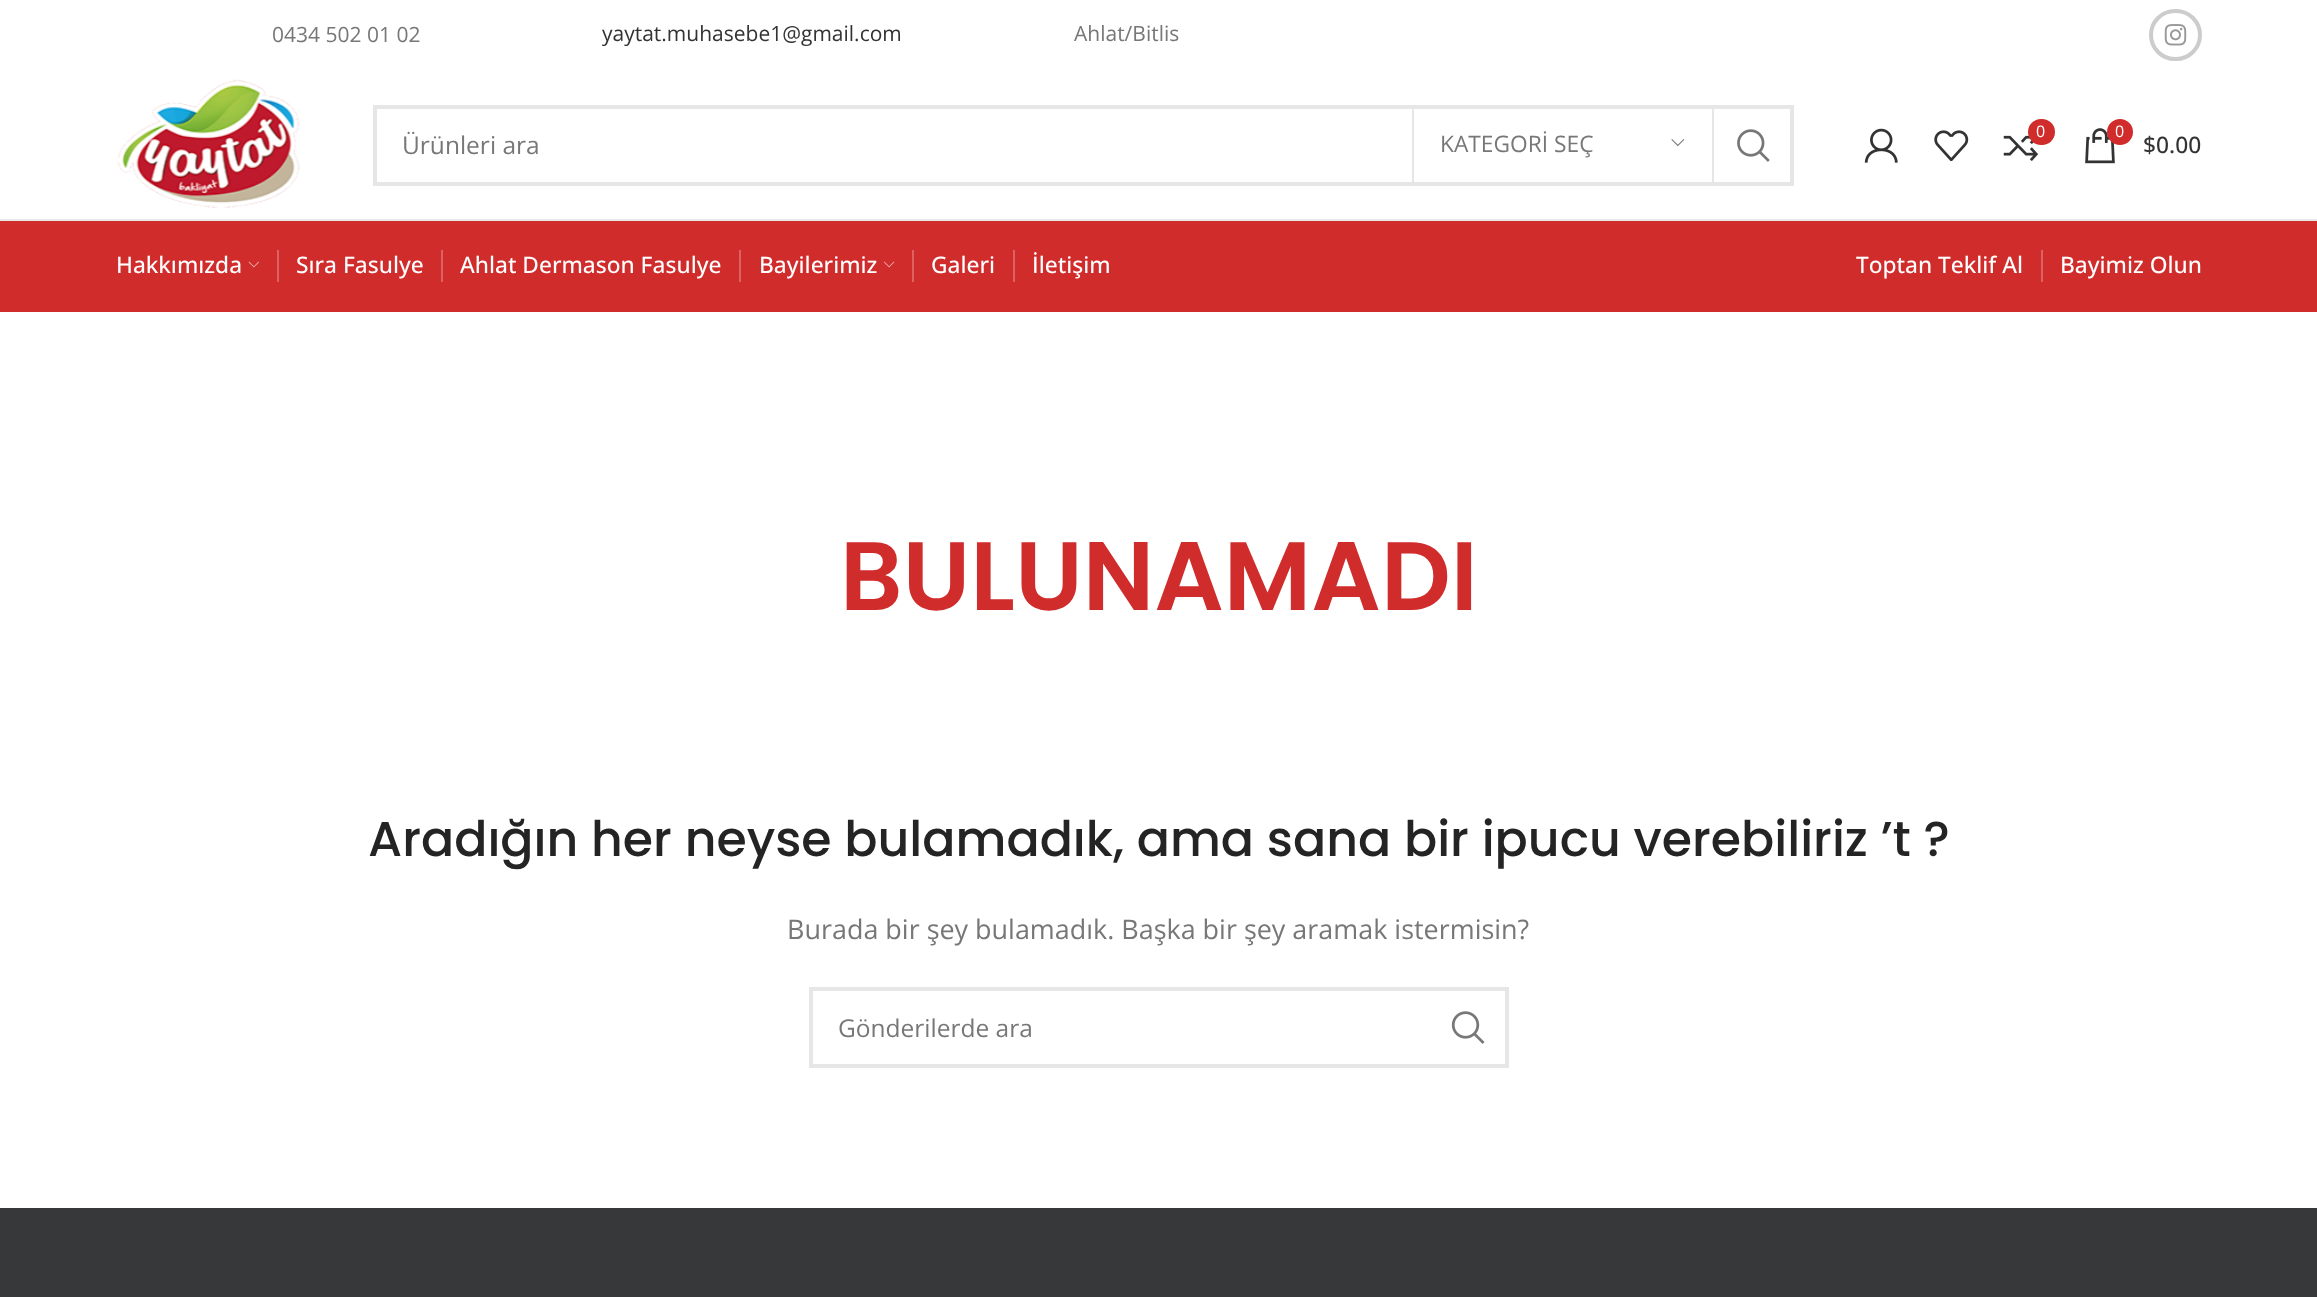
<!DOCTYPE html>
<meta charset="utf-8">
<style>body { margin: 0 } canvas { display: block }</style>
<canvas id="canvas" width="2317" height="1297"></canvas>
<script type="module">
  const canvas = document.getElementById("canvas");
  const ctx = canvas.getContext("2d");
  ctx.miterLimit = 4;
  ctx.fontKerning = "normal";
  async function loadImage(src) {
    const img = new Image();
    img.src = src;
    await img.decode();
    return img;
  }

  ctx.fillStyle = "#ffffff";
  ctx.fillRect(0, 0, 2317, 1297);
  ctx.font = "21px Open Sans";
  ctx.fillStyle = "#777777";
  ctx.fillText("0434 502 01 02", 272, 42);
  ctx.fillStyle = "#333333";
  ctx.fillText("yaytat.muhasebe1@gmail.com", 602, 41);
  ctx.fillStyle = "#777777";
  ctx.fillText("Ahlat/Bitlis", 1074, 41);
  ctx.beginPath();
  ctx.roundRect(2151, 11, 49, 48, 24);
  ctx.strokeStyle = "#cccccc";
  ctx.lineWidth = 4;
  ctx.stroke();
  ctx.drawImage(await loadImage("img1.png"), 2164, 24, 23, 22);
  ctx.fillStyle = "#e8e8e8";
  ctx.fillRect(0, 219, 2317, 2);
  ctx.drawImage(await loadImage("img2.png"), 117, 79, 183, 129);
  ctx.strokeStyle = "#e6e6e6";
  ctx.strokeRect(375, 107, 1417, 77);
  ctx.font = "24.5px Open Sans";
  ctx.fillStyle = "#777777";
  ctx.fillText("Ürünleri ara", 402, 154);
  ctx.fillStyle = "#e6e6e6";
  ctx.fillRect(1712, 109, 2, 73);
  ctx.fillRect(1412, 109, 2, 73);
  ctx.font = "22.75px Open Sans";
  ctx.fillStyle = "#777777";
  ctx.fillText("KATEGORİ SEÇ", 1440, 152);
  ctx.drawImage(await loadImage("img3.png"), 1671, 139, 14, 8);
  ctx.drawImage(await loadImage("img4.png"), 1737, 129, 33, 33);
  ctx.drawImage(await loadImage("img5.png"), 1864, 128, 34, 35);
  ctx.drawImage(await loadImage("img6.png"), 1934, 130, 35, 31);
  ctx.drawImage(await loadImage("img7.png"), 2003, 135, 35, 26);
  ctx.fillStyle = "#d12c2c";
  ctx.beginPath();
  ctx.roundRect(2028, 119, 27, 26, 13);
  ctx.fill();
  ctx.font = "16px Open Sans";
  ctx.fillStyle = "#ffffff";
  ctx.fillText("0", 2036, 137);
  ctx.drawImage(await loadImage("img8.png"), 2085, 128, 30, 36);
  ctx.fillStyle = "#d12c2c";
  ctx.beginPath();
  ctx.arc(2120, 132, 13, 0, Math.PI * 2);
  ctx.fill();
  ctx.fillStyle = "#ffffff";
  ctx.fillText("0", 2115, 137);
  ctx.font = "500 22.75px Open Sans";
  ctx.fillStyle = "#333333";
  ctx.fillText("$0.00", 2143, 153);
  ctx.fillStyle = "#d12c2c";
  ctx.fillRect(0, 221, 2317, 91);
  ctx.fillStyle = "#ffffff";
  ctx.fillText("Hakkımızda", 116, 273);
  ctx.drawImage(await loadImage("img9.png"), 248, 261, 11, 7);
  ctx.fillStyle = "#dd6161";
  ctx.fillRect(277, 250, 2, 32);
  ctx.fillStyle = "#ffffff";
  ctx.fillText("Sıra Fasulye", 296, 273);
  ctx.fillStyle = "#dd6161";
  ctx.fillRect(441, 250, 2, 32);
  ctx.fillStyle = "#ffffff";
  ctx.fillText("Ahlat Dermason Fasulye", 460, 273);
  ctx.fillStyle = "#dd6161";
  ctx.fillRect(739, 250, 2, 32);
  ctx.fillStyle = "#ffffff";
  ctx.fillText("Bayilerimiz", 759, 273);
  ctx.drawImage(await loadImage("img10.png"), 883, 261, 12, 7);
  ctx.fillStyle = "#dd6161";
  ctx.fillRect(912, 250, 2, 32);
  ctx.fillStyle = "#ffffff";
  ctx.fillText("Galeri", 931, 273);
  ctx.fillStyle = "#dd6161";
  ctx.fillRect(1013, 250, 2, 32);
  ctx.fillStyle = "#ffffff";
  ctx.fillText("İletişim", 1032, 273);
  ctx.fillText("Toptan Teklif Al", 1856, 273);
  ctx.fillStyle = "#dd6161";
  ctx.fillRect(2041, 250, 2, 32);
  ctx.fillStyle = "#ffffff";
  ctx.fillText("Bayimiz Olun", 2060, 273);
  ctx.font = "600 97.25px Poppins";
  ctx.fillStyle = "#d12c2c";
  ctx.fillText("BULUNAMADI", 840, 610);
  ctx.font = "500 49px Poppins";
  ctx.fillStyle = "#242424";
  ctx.fillText("Aradığın her neyse bulamadık, ama sana bir ipucu verebiliriz ’t ?", 368, 856);
  ctx.font = "26.95px Open Sans";
  ctx.fillStyle = "#777777";
  ctx.fillText("Burada bir şey bulamadık. Başka bir şey aramak istermisin?", 787, 939);
  ctx.strokeRect(811, 989, 696, 77);
  ctx.font = "24.5px Open Sans";
  ctx.fillText("Gönderilerde ara", 838, 1037);
  ctx.drawImage(await loadImage("img11.png"), 1451, 1011, 34, 33);
  ctx.fillStyle = "#373839";
  ctx.fillRect(0, 1208, 2317, 89);
</script>
